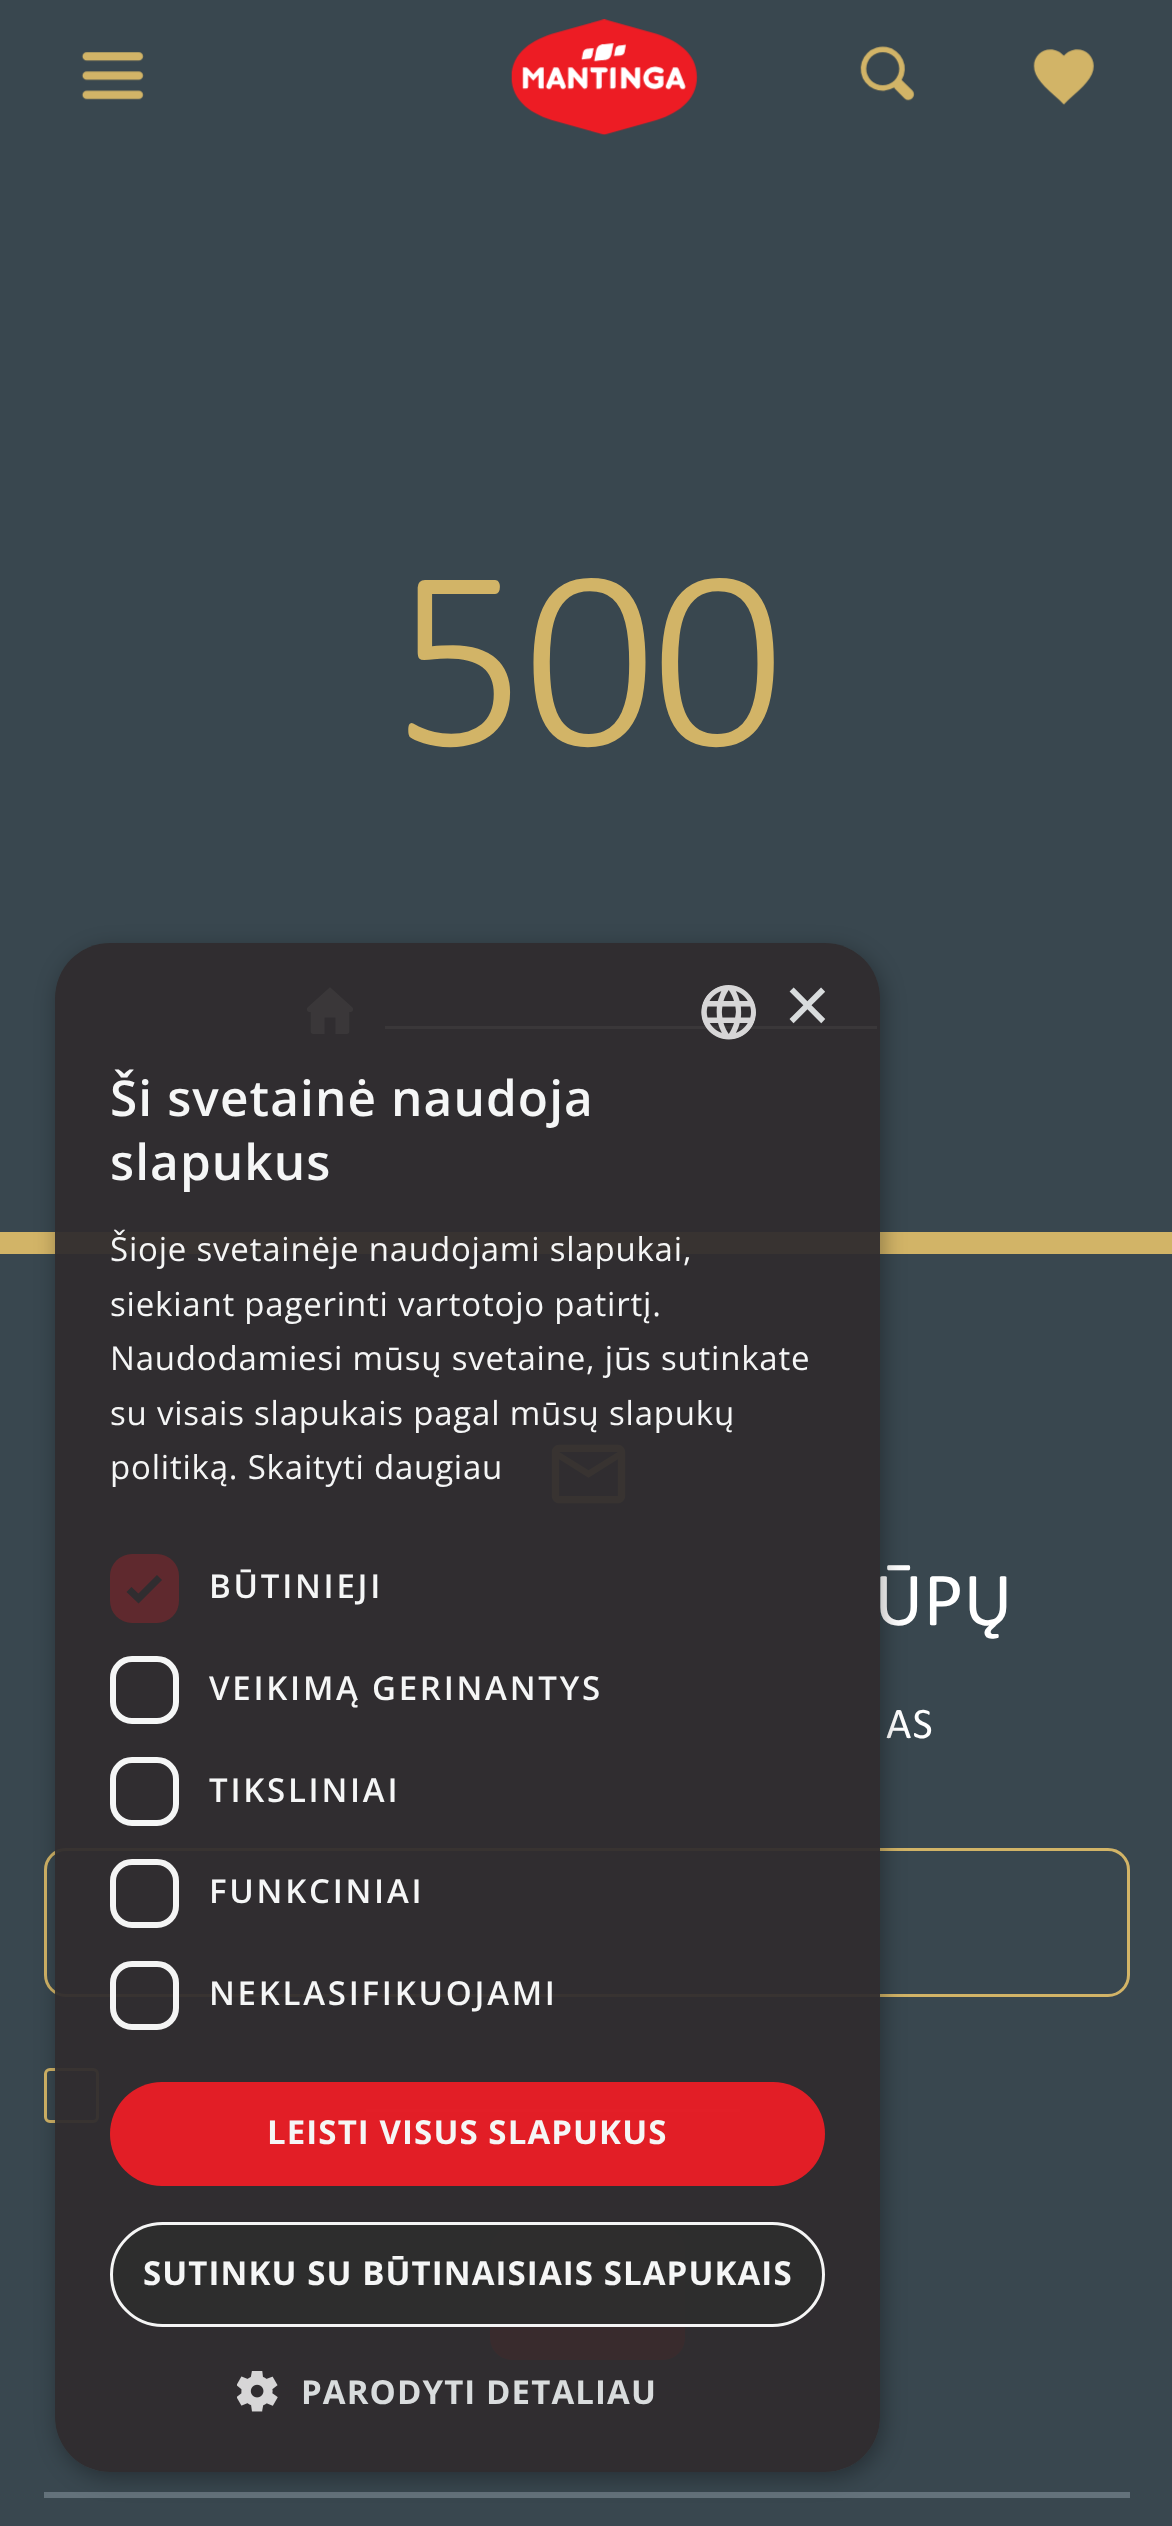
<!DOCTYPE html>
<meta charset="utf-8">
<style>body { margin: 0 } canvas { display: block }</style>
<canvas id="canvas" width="1172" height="2526"></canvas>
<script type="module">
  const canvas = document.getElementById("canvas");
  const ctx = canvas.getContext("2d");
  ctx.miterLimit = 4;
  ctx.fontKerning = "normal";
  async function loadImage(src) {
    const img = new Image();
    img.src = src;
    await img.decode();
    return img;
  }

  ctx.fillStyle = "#39474f";
  ctx.fillRect(0, 0, 1172, 2526);
  ctx.drawImage(await loadImage("img1.png"), 81, 52, 63, 48);
  ctx.drawImage(await loadImage("img2.png"), 511, 19, 187, 116);
  ctx.drawImage(await loadImage("img3.png"), 860, 46, 55, 55);
  ctx.drawImage(await loadImage("img4.png"), 1033, 49, 61, 56);
  ctx.letterSpacing = "-4px";
  ctx.font = "300 261px Calibri";
  ctx.fillStyle = "#d2b467";
  ctx.fillText("500", 395, 745);
  ctx.drawImage(await loadImage("img5.png"), 306, 987, 47, 47);
  ctx.fillStyle = "#ffffff";
  ctx.fillRect(385, 1026, 492, 3);
  ctx.fillStyle = "#d2b467";
  ctx.fillRect(0, 1232, 1172, 22);
  ctx.fillStyle = "#64727b";
  ctx.fillRect(44, 2492, 1086, 6);
  ctx.drawImage(await loadImage("img6.png"), 551, 1444, 75, 60);
  ctx.letterSpacing = "0px";
  ctx.font = "77px Calibri";
  ctx.fillStyle = "#ffffff";
  ctx.fillText("ŪPŲ", 874, 1625);
  ctx.letterSpacing = "1px";
  ctx.font = "44px Calibri";
  ctx.fillText("AS", 886, 1738);
  ctx.beginPath();
  ctx.roundRect(45.5, 1849.5, 1083, 146, 20.5);
  ctx.strokeStyle = "#d2b467";
  ctx.lineWidth = 3;
  ctx.stroke();
  ctx.beginPath();
  ctx.roundRect(45.5, 2069.5, 52, 52, 4.5);
  ctx.stroke();
  ctx.fillRect(366, 2109, 374, 3);
  ctx.fillStyle = "#ec1c24";
  ctx.beginPath();
  ctx.roundRect(491.5, 2229.5, 192, 129, 20.5);
  ctx.fill();
  ctx.strokeStyle = "#ec1c24";
  ctx.stroke();
  ctx.save();
  ctx.beginPath();
  ctx.moveTo(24, 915);
  ctx.lineTo(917, 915);
  ctx.lineTo(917, 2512);
  ctx.lineTo(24, 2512);
  ctx.closePath();
  ctx.moveTo(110, 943);
  ctx.lineTo(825, 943);
  ctx.bezierCurveTo(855.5, 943, 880, 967.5, 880, 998);
  ctx.lineTo(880, 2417);
  ctx.bezierCurveTo(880, 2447.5, 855.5, 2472, 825, 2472);
  ctx.lineTo(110, 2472);
  ctx.bezierCurveTo(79.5, 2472, 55, 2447.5, 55, 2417);
  ctx.lineTo(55, 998);
  ctx.bezierCurveTo(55, 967.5, 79.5, 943, 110, 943);
  ctx.closePath();
  ctx.clip("evenodd");
  ctx.fillStyle = "rgba(0, 0, 0, 0.33)";
  ctx.filter = "blur(11px)";
  ctx.beginPath();
  ctx.roundRect(58, 949, 825, 1529, 55);
  ctx.fill();
  ctx.filter = "none";
  ctx.restore();
  ctx.fillStyle = "rgba(47, 44, 46, 0.95)";
  ctx.beginPath();
  ctx.roundRect(55, 943, 825, 1529, 55);
  ctx.fill();
  ctx.drawImage(await loadImage("img7.png"), 701, 985, 55, 55);
  ctx.letterSpacing = "0px";
  ctx.font = "80px Liberation Sans";
  ctx.fillStyle = "#d9dcdd";
  ctx.fillText("×", 784, 1032);
  ctx.letterSpacing = "1.1px";
  ctx.font = "600 49.5px Open Sans";
  ctx.fillStyle = "#f5f6f6";
  ctx.fillText("Ši svetainė naudoja", 110, 1116);
  ctx.fillText("slapukus", 110, 1180);
  ctx.letterSpacing = "0.8px";
  ctx.font = "33px Open Sans";
  ctx.fillText("Šioje svetainėje naudojami slapukai,", 110, 1261);
  ctx.fillText("siekiant pagerinti vartotojo patirtį.", 110, 1316);
  ctx.fillText("Naudodamiesi mūsų svetaine, jūs sutinkate", 110, 1370);
  ctx.fillText("su visais slapukais pagal mūsų slapukų", 110, 1425);
  ctx.fillText("politiką. Skaityti daugiau", 110, 1479);
  ctx.fillStyle = "rgba(236, 30, 38, 0.25)";
  ctx.beginPath();
  ctx.roundRect(110, 1554, 69, 69, 22);
  ctx.fill();
  ctx.beginPath();
  ctx.moveTo(129, 1589.5);
  ctx.lineTo(138.5, 1598.5);
  ctx.lineTo(159.5, 1577.5);
  ctx.strokeStyle = "#302d30";
  ctx.lineWidth = 7.2;
  ctx.stroke();
  ctx.letterSpacing = "2.75px";
  ctx.font = "600 33px Open Sans";
  ctx.fillStyle = "#f5f6f6";
  ctx.fillText("BŪTINIEJI", 209, 1598);
  ctx.beginPath();
  ctx.roundRect(113, 1659, 63, 62, 19);
  ctx.strokeStyle = "#f5f6f6";
  ctx.lineWidth = 6;
  ctx.stroke();
  ctx.fillText("VEIKIMĄ GERINANTYS", 209, 1700);
  ctx.beginPath();
  ctx.roundRect(113, 1760, 63, 63, 19);
  ctx.stroke();
  ctx.fillText("TIKSLINIAI", 209, 1802);
  ctx.beginPath();
  ctx.roundRect(113, 1862, 63, 63, 19);
  ctx.strokeStyle = "rgba(255, 255, 255, 0.95)";
  ctx.stroke();
  ctx.fillText("FUNKCINIAI", 209, 1903);
  ctx.beginPath();
  ctx.roundRect(113, 1964, 63, 63, 19);
  ctx.stroke();
  ctx.fillText("NEKLASIFIKUOJAMI", 209, 2005);
  ctx.fillStyle = "rgba(236, 30, 38, 0.95)";
  ctx.beginPath();
  ctx.roundRect(110, 2082, 715, 104, 52);
  ctx.fill();
  ctx.letterSpacing = "1.1px";
  ctx.font = "bold 33px Open Sans";
  ctx.fillStyle = "#f5f6f6";
  ctx.fillText("LEISTI VISUS SLAPUKUS", 267, 2144);
  ctx.fillStyle = "rgba(45, 45, 45, 0.95)";
  ctx.beginPath();
  ctx.roundRect(111.5, 2223.5, 712, 102, 51);
  ctx.fill();
  ctx.strokeStyle = "#f5f5f5";
  ctx.lineWidth = 3;
  ctx.stroke();
  ctx.fillStyle = "#f5f6f6";
  ctx.fillText("SUTINKU SU BŪTINAISIAIS SLAPUKAIS", 143, 2285);
  ctx.drawImage(await loadImage("img8.png"), 237, 2371, 41, 41);
  ctx.fillStyle = "#d9dcdd";
  ctx.fillText("PARODYTI DETALIAU", 301, 2404);
</script>
